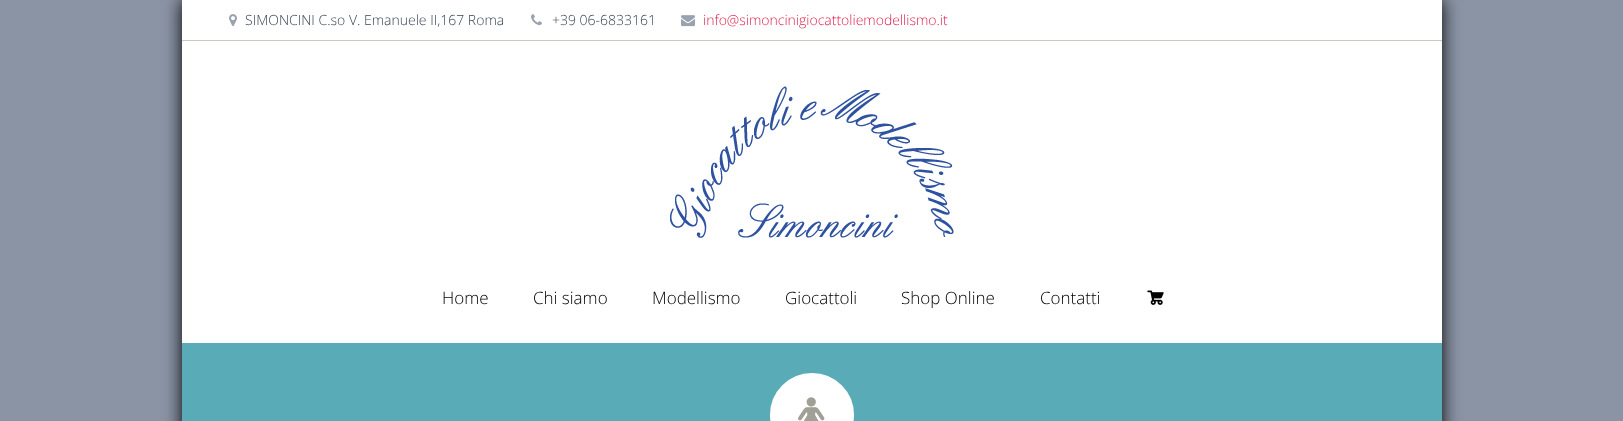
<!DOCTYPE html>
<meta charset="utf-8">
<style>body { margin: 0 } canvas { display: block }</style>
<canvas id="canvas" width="1623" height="421"></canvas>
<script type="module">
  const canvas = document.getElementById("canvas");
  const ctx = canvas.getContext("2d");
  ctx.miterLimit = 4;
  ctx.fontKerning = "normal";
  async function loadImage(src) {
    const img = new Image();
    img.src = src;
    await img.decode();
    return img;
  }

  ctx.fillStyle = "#8b94a5";
  ctx.fillRect(0, 0, 1623, 421);
  ctx.fillStyle = "#000000";
  ctx.filter = "blur(9px)";
  ctx.beginPath();
  ctx.rect(182, 0, 1260, 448);
  ctx.fill();
  ctx.filter = "none";
  ctx.fillStyle = "#ffffff";
  ctx.fillRect(182, 0, 1260, 40);
  ctx.fillStyle = "#cac9c1";
  ctx.fillRect(182, 40, 1260, 1);
  ctx.drawImage(await loadImage("img1.png"), 229, 14, 8, 12);
  ctx.font = "300 14px Open Sans";
  ctx.fillStyle = "#384554";
  ctx.fillText("SIMONCINI C.so V. Emanuele II,167 Roma", 245, 25);
  ctx.drawImage(await loadImage("img2.png"), 531, 14, 11, 12);
  ctx.fillText("+39 06-6833161", 552, 25);
  ctx.drawImage(await loadImage("img3.png"), 681, 15, 14, 12);
  ctx.fillStyle = "#df224f";
  ctx.fillText("info@simoncinigiocattoliemodellismo.it", 703, 25);
  ctx.fillStyle = "#ffffff";
  ctx.fillRect(182, 41, 1260, 302);
  ctx.drawImage(await loadImage("img4.png"), 670, 86, 284, 152);
  ctx.font = "300 17px Open Sans";
  ctx.fillStyle = "#000000";
  ctx.fillText("Home", 442, 304);
  ctx.fillText("Chi siamo", 533, 304);
  ctx.fillText("Modellismo", 652, 304);
  ctx.fillText("Giocattoli", 785, 304);
  ctx.fillText("Shop Online", 901, 304);
  ctx.fillText("Contatti", 1040, 304);
  ctx.drawImage(await loadImage("img5.png"), 1147, 290, 17, 15);
  ctx.fillStyle = "#59abb7";
  ctx.fillRect(182, 343, 1260, 78);
  ctx.fillStyle = "#ffffff";
  ctx.beginPath();
  ctx.arc(812, 415, 41, 0, Math.PI * 2);
  ctx.fill();
  ctx.strokeStyle = "#ffffff";
  ctx.lineWidth = 2;
  ctx.stroke();
  ctx.drawImage(await loadImage("img6.png"), 798, 397, 14, 24);
  ctx.drawImage(await loadImage("img7.png"), 812, 397, 13, 24);
</script>
